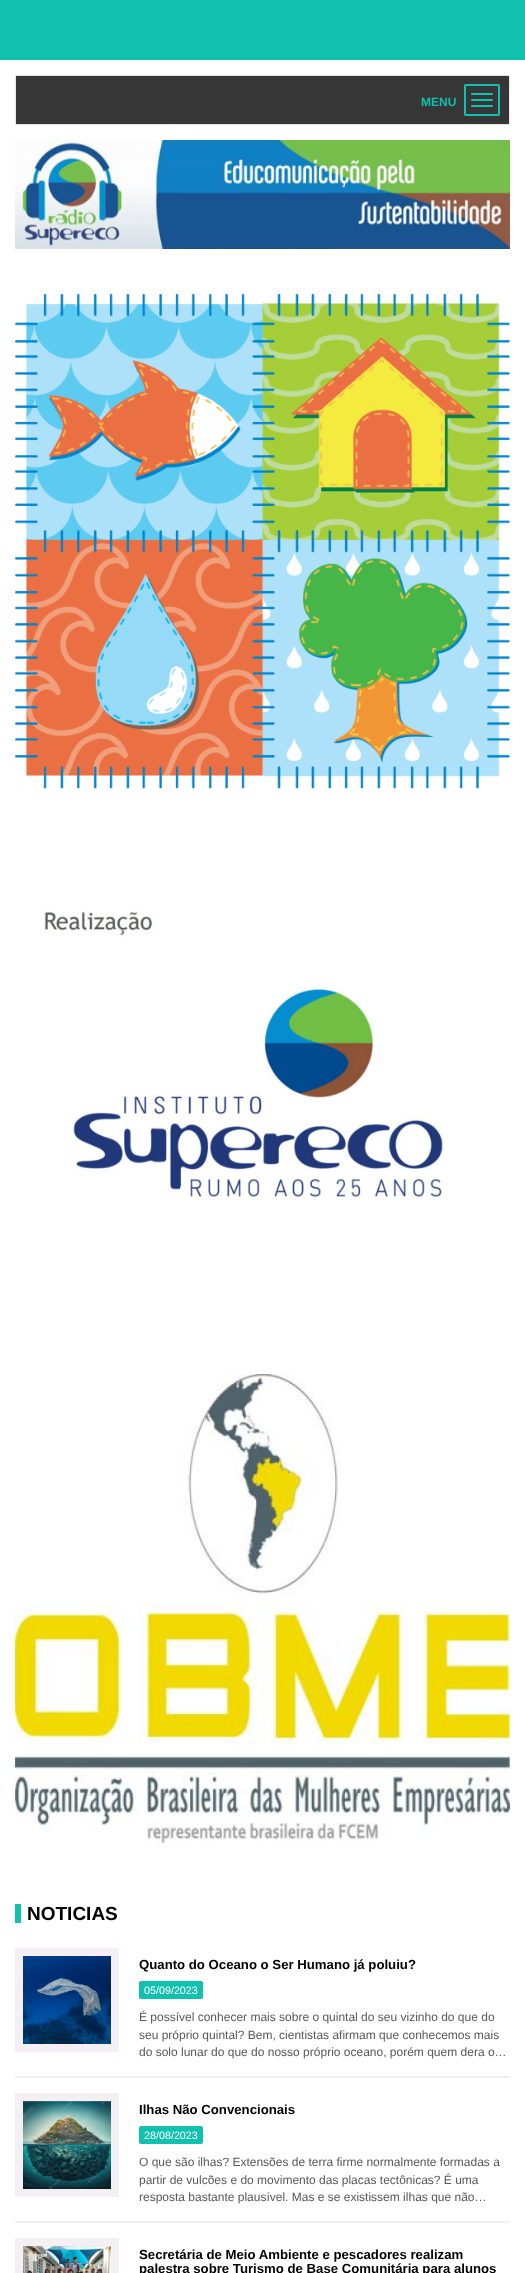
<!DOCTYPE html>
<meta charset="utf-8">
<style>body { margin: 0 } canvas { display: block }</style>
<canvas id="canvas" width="525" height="2273"></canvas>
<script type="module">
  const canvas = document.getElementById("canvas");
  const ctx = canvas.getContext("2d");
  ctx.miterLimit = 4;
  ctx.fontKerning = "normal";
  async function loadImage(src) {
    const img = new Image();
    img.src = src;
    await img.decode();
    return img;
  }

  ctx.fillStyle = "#10c1af";
  ctx.fillRect(0, 0, 525, 2273);
  ctx.fillStyle = "#ffffff";
  ctx.fillRect(0, 60, 525, 2213);
  ctx.strokeStyle = "#e7e7e7";
  ctx.strokeRect(15.5, 75.5, 494, 49);
  ctx.fillStyle = "#363636";
  ctx.fillRect(16, 76, 493, 48);
  ctx.beginPath();
  ctx.roundRect(465, 85, 34, 30, 1);
  ctx.strokeStyle = "#10c1af";
  ctx.lineWidth = 2;
  ctx.stroke();
  ctx.fillStyle = "#10c1af";
  ctx.beginPath();
  ctx.roundRect(471, 93, 22, 2, 1);
  ctx.fill();
  ctx.font = "bold 12px Liberation Sans";
  ctx.fillText("MENU", 421, 106);
  ctx.beginPath();
  ctx.roundRect(471, 99, 22, 2, 1);
  ctx.fill();
  ctx.beginPath();
  ctx.roundRect(471, 105, 22, 2, 1);
  ctx.fill();
  ctx.drawImage(await loadImage("img1.png"), 15, 140, 495, 109);
  ctx.drawImage(await loadImage("img2.png"), 15, 294, 495, 495);
  ctx.drawImage(await loadImage("img3.png"), 43, 911, 402, 289);
  ctx.drawImage(await loadImage("img4.png"), 15, 1374, 495, 472);
  ctx.fillRect(15, 1904, 6, 19);
  ctx.font = "bold 19px Liberation Sans";
  ctx.fillStyle = "#000000";
  ctx.fillText("NOTICIAS", 27, 1920);
  ctx.fillStyle = "#f3eff1";
  ctx.fillRect(15, 2076, 495, 2);
  ctx.strokeStyle = "#f3eff2";
  ctx.lineWidth = 8;
  ctx.strokeRect(19, 1952, 96, 96);
  ctx.drawImage(await loadImage("img5.png"), 23, 1956, 88, 88);
  ctx.font = "bold 13.2px Liberation Sans";
  ctx.fillStyle = "#000000";
  ctx.fillText("Quanto do Oceano o Ser Humano já poluiu?", 139, 1969);
  ctx.fillStyle = "#10c1af";
  ctx.beginPath();
  ctx.roundRect(139, 1981, 64, 18, 2);
  ctx.fill();
  ctx.font = "10.75px Liberation Sans";
  ctx.fillStyle = "#ffffff";
  ctx.fillText("05/09/2023", 144, 1994);
  ctx.font = "12px Liberation Sans";
  ctx.fillStyle = "#585858";
  ctx.fillText("É possível conhecer mais sobre o quintal do seu vizinho do que do", 139, 2021);
  ctx.fillText("seu próprio quintal? Bem, cientistas afirmam que conhecemos mais", 139, 2039);
  ctx.fillText("do solo lunar do que do nosso próprio oceano, porém quem dera o…", 139, 2056);
  ctx.fillStyle = "#f3eff1";
  ctx.fillRect(15, 2221, 495, 2);
  ctx.strokeRect(19, 2097, 96, 96);
  ctx.drawImage(await loadImage("img6.png"), 23, 2101, 88, 88);
  ctx.font = "bold 13.2px Liberation Sans";
  ctx.fillStyle = "#000000";
  ctx.fillText("Ilhas Não Convencionais", 139, 2114);
  ctx.fillStyle = "#10c1af";
  ctx.beginPath();
  ctx.roundRect(139, 2126, 64, 18, 2);
  ctx.fill();
  ctx.font = "10.75px Liberation Sans";
  ctx.fillStyle = "#ffffff";
  ctx.fillText("28/08/2023", 144, 2139);
  ctx.font = "12px Liberation Sans";
  ctx.fillStyle = "#585858";
  ctx.fillText("O que são ilhas? Extensões de terra firme normalmente formadas a", 139, 2166);
  ctx.fillText("partir de vulcões e do movimento das placas tectônicas? É uma", 139, 2184);
  ctx.fillText("resposta bastante plausível. Mas e se existissem ilhas que não…", 139, 2201);
  ctx.strokeRect(19, 2242, 96, 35);
  ctx.drawImage(await loadImage("img7.png"), 23, 2246, 88, 27);
  ctx.font = "bold 13.2px Liberation Sans";
  ctx.fillStyle = "#000000";
  ctx.fillText("Secretária de Meio Ambiente e pescadores realizam", 139, 2259);
  ctx.fillText("palestra sobre Turismo de Base Comunitária para alunos", 139, 2273);
</script>
